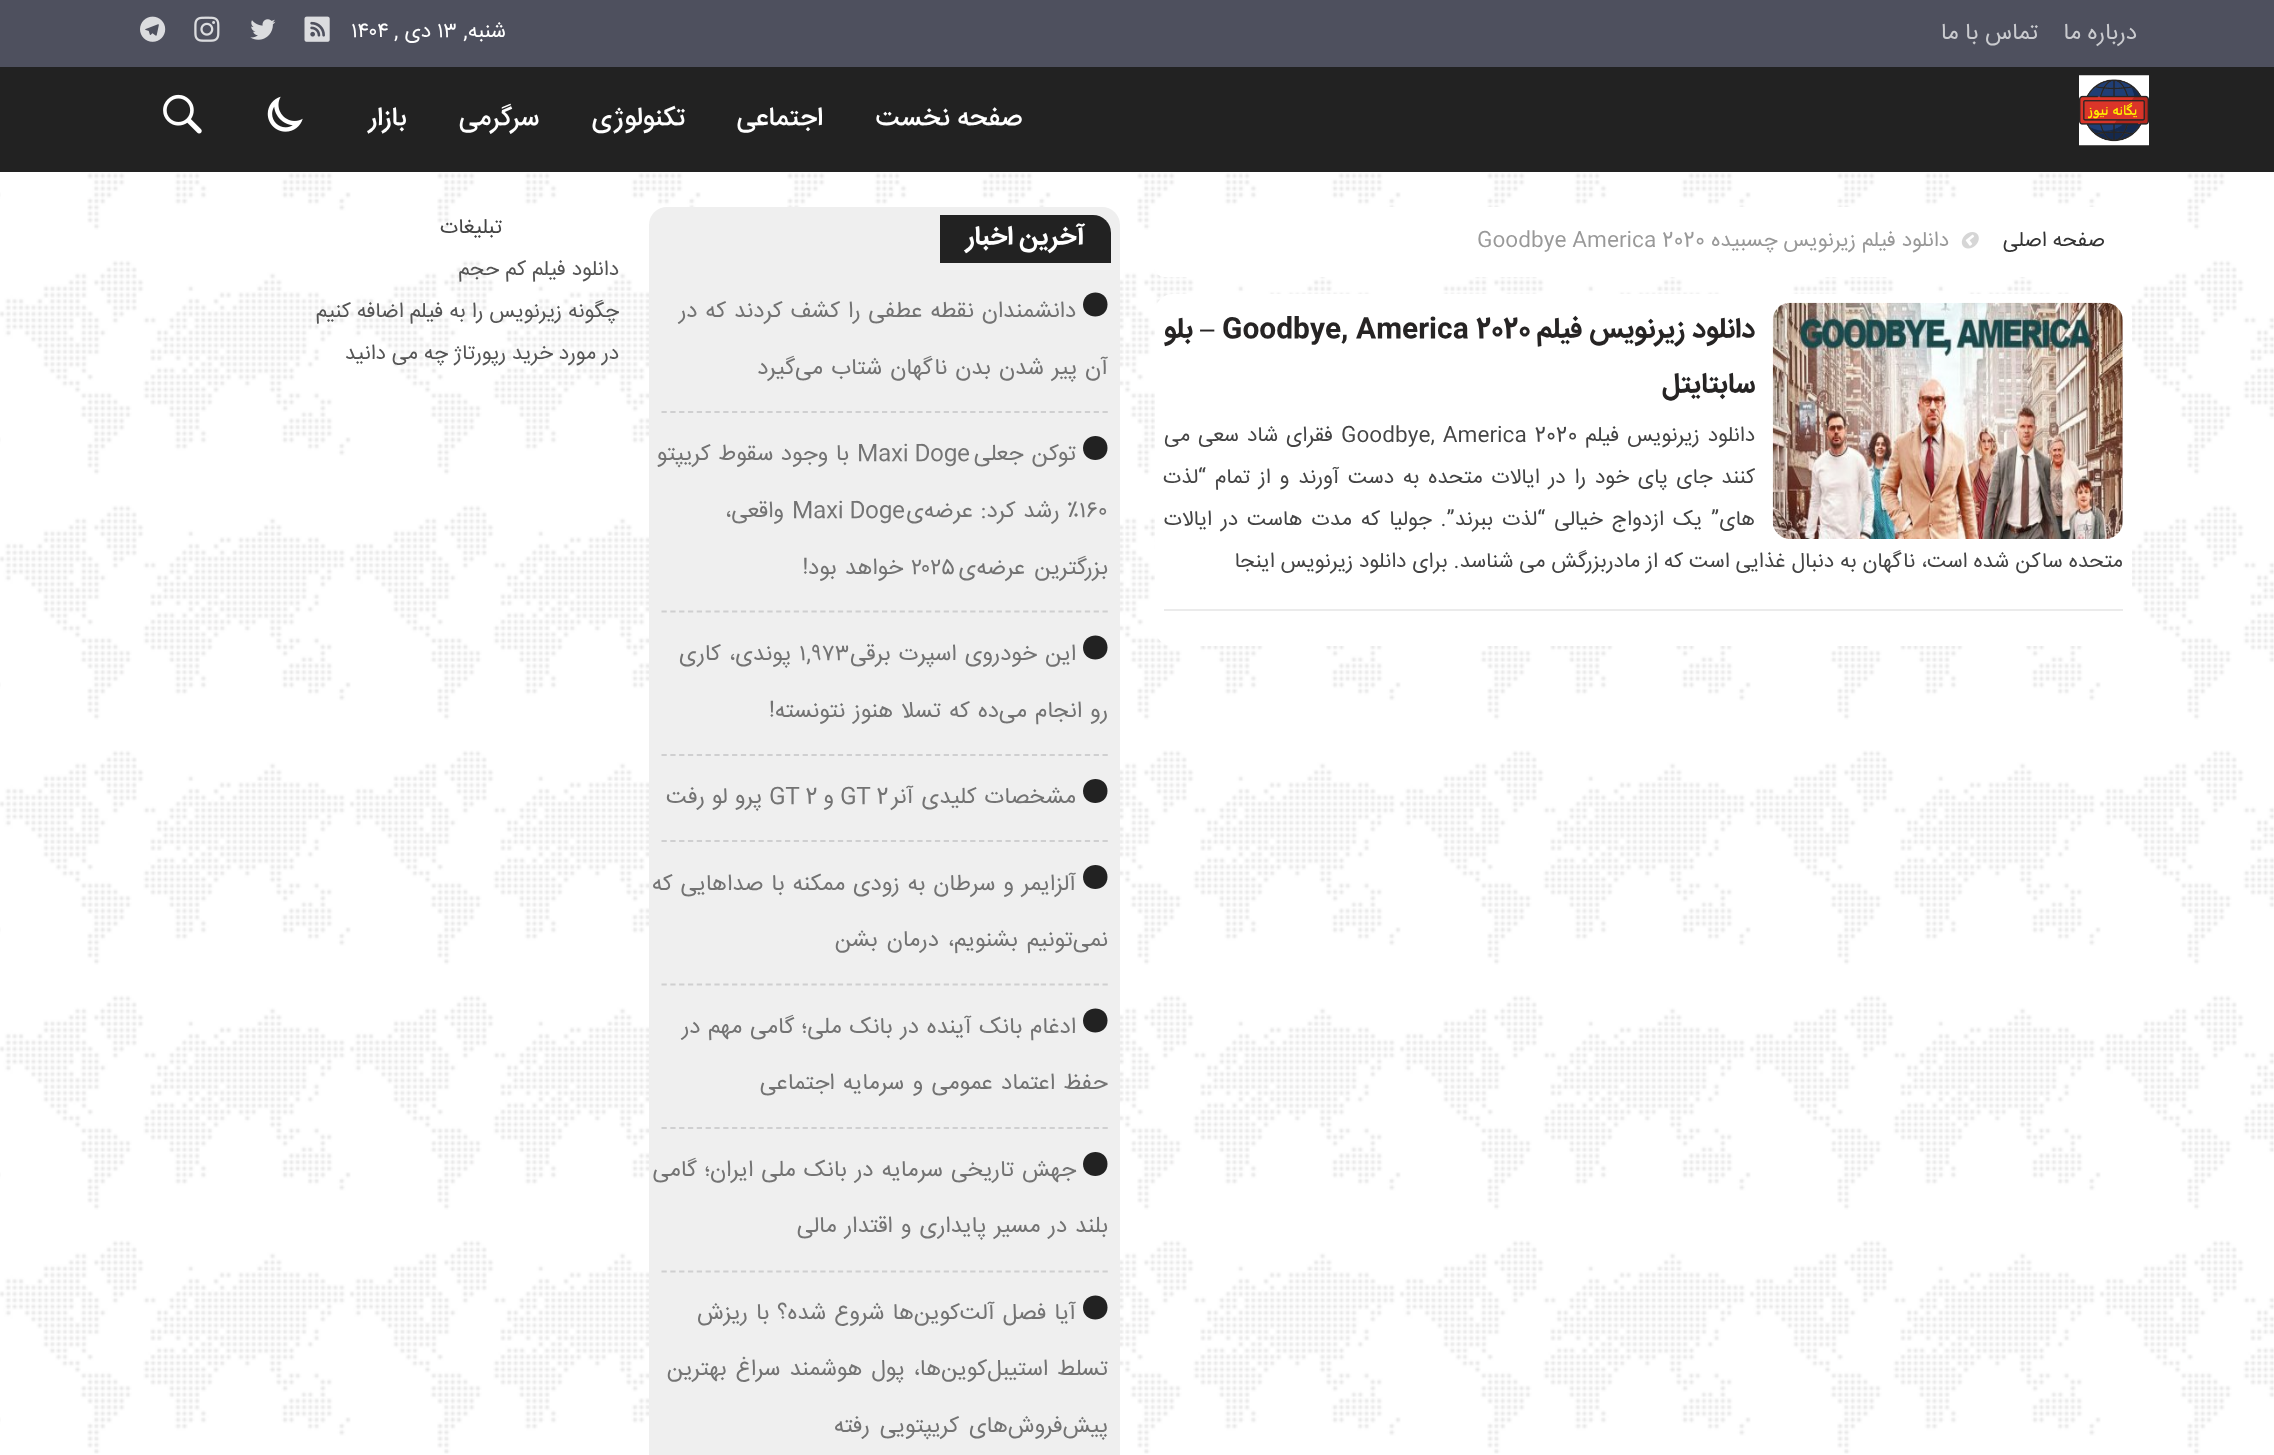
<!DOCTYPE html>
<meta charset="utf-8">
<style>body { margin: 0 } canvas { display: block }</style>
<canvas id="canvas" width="2274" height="1455"></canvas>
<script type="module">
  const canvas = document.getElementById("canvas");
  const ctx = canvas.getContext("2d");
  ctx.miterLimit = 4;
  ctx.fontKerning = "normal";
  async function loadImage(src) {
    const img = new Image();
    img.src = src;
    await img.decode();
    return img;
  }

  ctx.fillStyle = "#ffffff";
  ctx.fillRect(0, 0, 2274, 1455);
  ctx.drawImage(await loadImage("img1.png"), 0, 172, 2274, 1282);
  ctx.fillStyle = "#4e505e";
  ctx.fillRect(0, 0, 2274, 67);
  ctx.direction = "rtl";
  ctx.font = "23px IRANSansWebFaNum";
  ctx.fillStyle = "#cacbcf";
  ctx.fillText("درباره ما", 2137, 39);
  ctx.fillText("تماس با ما", 2038, 39);
  ctx.font = "21px IRANSansWebFaNum";
  ctx.fillStyle = "#ffffff";
  ctx.fillText("شنبه,", 506, 37);
  ctx.direction = "ltr";
  ctx.fillText("۱۳", 437, 37);
  ctx.direction = "rtl";
  ctx.fillText("دی ,", 431, 37);
  ctx.direction = "ltr";
  ctx.fillText("۱۴۰۴", 351, 37);
  ctx.drawImage(await loadImage("img2.png"), 304, 16, 26, 26);
  ctx.drawImage(await loadImage("img3.png"), 250, 19, 26, 21);
  ctx.drawImage(await loadImage("img4.png"), 194, 16, 26, 26);
  ctx.drawImage(await loadImage("img5.png"), 140, 16, 26, 26);
  ctx.fillStyle = "#222222";
  ctx.fillRect(0, 67, 2274, 105);
  ctx.drawImage(await loadImage("img6.png"), 2079, 75, 70, 71);
  ctx.direction = "rtl";
  ctx.font = "500 26.25px IRANSansWebFaNum";
  ctx.fillStyle = "#ffffff";
  ctx.fillText("صفحه نخست", 1022, 125);
  ctx.fillText("اجتماعی", 823, 125);
  ctx.fillText("تکنولوژی", 685, 125);
  ctx.fillText("سرگرمی", 539, 125);
  ctx.fillText("بازار", 406, 125);
  ctx.drawImage(await loadImage("img7.png"), 267, 96, 36, 36);
  ctx.drawImage(await loadImage("img8.png"), 163, 94, 39, 40);
  ctx.beginPath();
  ctx.roundRect(1155, 207, 977, 70, 9);
  ctx.fill();
  ctx.font = "21px IRANSansWebFaNum";
  ctx.fillStyle = "#333333";
  ctx.fillText("صفحه اصلی", 2105, 246);
  ctx.drawImage(await loadImage("img9.png"), 1961, 232, 18, 17);
  ctx.fillStyle = "#999999";
  ctx.fillText("دانلود فیلم زیرنویس چسبیده", 1949, 246);
  ctx.direction = "ltr";
  ctx.fillText("Goodbye America 2020", 1477, 246);
  ctx.fillStyle = "#ffffff";
  ctx.beginPath();
  ctx.roundRect(1155, 294, 977, 352, 18);
  ctx.fill();
  ctx.fillStyle = "#ebebeb";
  ctx.fillRect(1164, 609, 959, 2);
  ctx.drawImage(await loadImage("img10.png"), 1772, 302, 351, 237);
  ctx.wordSpacing = "1px";
  ctx.direction = "rtl";
  ctx.font = "bold 27.75px IRANSansWebFaNum";
  ctx.fillStyle = "#262424";
  ctx.fillText("دانلود زیرنویس فیلم", 1755, 337);
  ctx.direction = "ltr";
  ctx.fillText("Goodbye, America 2020", 1222, 337);
  ctx.wordSpacing = "0px";
  ctx.direction = "rtl";
  ctx.font = "bold 27.75px Liberation Serif";
  ctx.fillText("–", 1214, 337);
  ctx.font = "bold 27.75px IRANSansWebFaNum";
  ctx.fillText("بلو", 1193, 337);
  ctx.fillText("سابتایتل", 1755, 392);
  ctx.wordSpacing = "2px";
  ctx.font = "21px IRANSansWebFaNum";
  ctx.fillStyle = "#444444";
  ctx.fillText("دانلود زیرنویس فیلم", 1755, 441);
  ctx.direction = "ltr";
  ctx.fillText("Goodbye, America 2020", 1341, 441);
  ctx.direction = "rtl";
  ctx.fillText("فقرای شاد سعی می", 1333, 441);
  ctx.wordSpacing = "2.9px";
  ctx.fillText("کنند جای پای خود را در ایالات متحده به دست آورند و از تمام “لذت", 1755, 483);
  ctx.wordSpacing = "3.1px";
  ctx.fillText("های” یک ازدواج خیالی “لذت ببرند”. جولیا که مدت هاست در ایالات", 1755, 525);
  ctx.wordSpacing = "0px";
  ctx.fillText("متحده ساکن شده است، ناگهان به دنبال غذایی است که از مادربزرگش می شناسد. برای دانلود زیرنویس اینجا", 2123, 567);
  ctx.fillStyle = "#efefef";
  ctx.beginPath();
  ctx.roundRect(649, 207, 471, 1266, 18);
  ctx.fill();
  ctx.fillStyle = "#222222";
  ctx.beginPath();
  ctx.roundRect(940, 215, 171, 48, [0, 18, 0, 0]);
  ctx.fill();
  ctx.font = "bold 26.25px IRANSansWebFaNum";
  ctx.fillStyle = "#ffffff";
  ctx.fillText("آخرین اخبار", 1085, 244);
  ctx.beginPath();
  ctx.moveTo(661.5, 412);
  ctx.lineTo(1108, 412);
  ctx.strokeStyle = "#cfcfd0";
  ctx.lineWidth = 1.8;
  ctx.setLineDash([5.25, 3.57]);
  ctx.stroke();
  ctx.fillStyle = "#222222";
  ctx.beginPath();
  ctx.moveTo(1107.5, 304.5);
  ctx.bezierCurveTo(1107.5, 320.5, 1083, 320.5, 1083, 304.5);
  ctx.bezierCurveTo(1083.5, 288.5, 1107.5, 288.5, 1107.5, 304.5);
  ctx.closePath();
  ctx.fill();
  ctx.letterSpacing = "-0.35px";
  ctx.wordSpacing = "1.75px";
  ctx.font = "22.7px IRANSansWebFaNum";
  ctx.fillStyle = "#737373";
  ctx.fillText("دانشمندان نقطه عطفی را کشف کردند که در", 1076, 317);
  ctx.wordSpacing = "2px";
  ctx.fillText("آن پیر شدن بدن ناگهان شتاب می‌گیرد", 1108, 374);
  ctx.beginPath();
  ctx.moveTo(661.5, 611.5);
  ctx.lineTo(1108, 611.5);
  ctx.stroke();
  ctx.fillStyle = "#222222";
  ctx.beginPath();
  ctx.moveTo(1107.5, 448);
  ctx.bezierCurveTo(1107.5, 464, 1083, 464, 1083, 448);
  ctx.bezierCurveTo(1083.5, 432, 1107.5, 432, 1107.5, 448);
  ctx.closePath();
  ctx.fill();
  ctx.fillStyle = "#737373";
  ctx.fillText("توکن جعلی", 1076, 460);
  ctx.wordSpacing = "0px";
  ctx.direction = "ltr";
  ctx.fillText("Maxi Doge", 857, 460);
  ctx.wordSpacing = "1.5px";
  ctx.direction = "rtl";
  ctx.fillText("با وجود سقوط کریپتو", 849, 460);
  ctx.wordSpacing = "0px";
  ctx.direction = "ltr";
  ctx.fillText("۱۶۰", 1079, 517);
  ctx.wordSpacing = "1.5px";
  ctx.direction = "rtl";
  ctx.fillText("٪ رشد کرد: عرضه‌ی", 1079, 517);
  ctx.wordSpacing = "0px";
  ctx.direction = "ltr";
  ctx.fillText("Maxi Doge", 792, 517);
  ctx.direction = "rtl";
  ctx.fillText("واقعی،", 784, 517);
  ctx.wordSpacing = "3px";
  ctx.fillText("بزرگترین عرضه‌ی", 1108, 574);
  ctx.wordSpacing = "0px";
  ctx.direction = "ltr";
  ctx.fillText("۲۰۲۵", 911, 574);
  ctx.wordSpacing = "2px";
  ctx.direction = "rtl";
  ctx.fillText("خواهد بود!", 903, 574);
  ctx.beginPath();
  ctx.moveTo(661.5, 755);
  ctx.lineTo(1108, 755);
  ctx.stroke();
  ctx.fillStyle = "#222222";
  ctx.beginPath();
  ctx.moveTo(1107.5, 647.5);
  ctx.bezierCurveTo(1107.5, 663.5, 1083, 663.5, 1083, 647.5);
  ctx.bezierCurveTo(1083.5, 631.5, 1107.5, 631.5, 1107.5, 647.5);
  ctx.closePath();
  ctx.fill();
  ctx.fillStyle = "#737373";
  ctx.fillText("این خودروی اسپرت برقی", 1076, 660);
  ctx.wordSpacing = "0px";
  ctx.direction = "ltr";
  ctx.fillText("۱,۹۷۳", 799, 660);
  ctx.wordSpacing = "2px";
  ctx.direction = "rtl";
  ctx.fillText("پوندی، کاری", 791, 660);
  ctx.fillText("رو انجام می‌ده که تسلا هنوز نتونسته!", 1108, 717);
  ctx.beginPath();
  ctx.moveTo(661.5, 841);
  ctx.lineTo(1108, 841);
  ctx.stroke();
  ctx.fillStyle = "#222222";
  ctx.beginPath();
  ctx.moveTo(1107.5, 791);
  ctx.bezierCurveTo(1107.5, 807, 1083, 807, 1083, 791);
  ctx.bezierCurveTo(1083.5, 775, 1107.5, 775, 1107.5, 791);
  ctx.closePath();
  ctx.fill();
  ctx.fillStyle = "#737373";
  ctx.fillText("مشخصات کلیدی آنر", 1076, 803);
  ctx.wordSpacing = "0px";
  ctx.direction = "ltr";
  ctx.fillText("GT 2", 840, 803);
  ctx.direction = "rtl";
  ctx.fillText("و", 834, 803);
  ctx.direction = "ltr";
  ctx.fillText("GT 2", 769, 803);
  ctx.wordSpacing = "1px";
  ctx.direction = "rtl";
  ctx.fillText("پرو لو رفت", 762, 803);
  ctx.beginPath();
  ctx.moveTo(661.5, 984.5);
  ctx.lineTo(1108, 984.5);
  ctx.stroke();
  ctx.fillStyle = "#222222";
  ctx.beginPath();
  ctx.moveTo(1107.5, 877);
  ctx.bezierCurveTo(1107.5, 893, 1083, 893, 1083, 877);
  ctx.bezierCurveTo(1083.5, 861, 1107.5, 861, 1107.5, 877);
  ctx.closePath();
  ctx.fill();
  ctx.wordSpacing = "1.75px";
  ctx.fillStyle = "#737373";
  ctx.fillText("آلزایمر و سرطان به زودی ممکنه با صداهایی که", 1076, 890);
  ctx.wordSpacing = "3px";
  ctx.fillText("نمی‌تونیم بشنویم، درمان بشن", 1108, 946);
  ctx.beginPath();
  ctx.moveTo(661.5, 1128);
  ctx.lineTo(1108, 1128);
  ctx.stroke();
  ctx.fillStyle = "#222222";
  ctx.beginPath();
  ctx.moveTo(1107.5, 1020.5);
  ctx.bezierCurveTo(1107.5, 1036.5, 1083, 1036.5, 1083, 1020.5);
  ctx.bezierCurveTo(1083.5, 1004.5, 1107.5, 1004.5, 1107.5, 1020.5);
  ctx.closePath();
  ctx.fill();
  ctx.wordSpacing = "1.75px";
  ctx.fillStyle = "#737373";
  ctx.fillText("ادغام بانک آینده در بانک ملی؛ گامی مهم در", 1076, 1033);
  ctx.wordSpacing = "2.25px";
  ctx.fillText("حفظ اعتماد عمومی و سرمایه اجتماعی", 1108, 1089);
  ctx.beginPath();
  ctx.moveTo(661.5, 1271.5);
  ctx.lineTo(1108, 1271.5);
  ctx.stroke();
  ctx.fillStyle = "#222222";
  ctx.beginPath();
  ctx.moveTo(1107.5, 1164);
  ctx.bezierCurveTo(1107.5, 1180, 1083, 1180, 1083, 1164);
  ctx.bezierCurveTo(1083.5, 1148, 1107.5, 1148, 1107.5, 1164);
  ctx.closePath();
  ctx.fill();
  ctx.wordSpacing = "2px";
  ctx.fillStyle = "#737373";
  ctx.fillText("جهش تاریخی سرمایه در بانک ملی ایران؛ گامی", 1076, 1176);
  ctx.fillText("بلند در مسیر پایداری و اقتدار مالی", 1108, 1232);
  ctx.fillStyle = "#222222";
  ctx.beginPath();
  ctx.moveTo(1107.5, 1307.5);
  ctx.bezierCurveTo(1107.5, 1323.5, 1083, 1323.5, 1083, 1307.5);
  ctx.bezierCurveTo(1083.5, 1291.5, 1107.5, 1291.5, 1107.5, 1307.5);
  ctx.closePath();
  ctx.fill();
  ctx.fillStyle = "#737373";
  ctx.fillText("آیا فصل آلت‌کوین‌ها شروع شده؟ با ریزش", 1076, 1319);
  ctx.wordSpacing = "2.9px";
  ctx.fillText("تسلط استیبل‌کوین‌ها، پول هوشمند سراغ بهترین", 1108, 1375);
  ctx.wordSpacing = "4px";
  ctx.fillText("پیش‌فروش‌های کریپتویی رفته", 1108, 1432);
  ctx.letterSpacing = "0px";
  ctx.wordSpacing = "0px";
  ctx.font = "21px IRANSansWebFaNum";
  ctx.fillStyle = "#444444";
  ctx.fillText("تبلیغات", 502, 233);
  ctx.fillStyle = "#555555";
  ctx.fillText("دانلود فيلم کم حجم", 619, 275);
  ctx.fillText("چگونه زيرنويس را به فيلم اضافه کنيم", 619, 317);
  ctx.fillText("در مورد خرید رپورتاژ چه می دانید", 619, 359);
</script>
